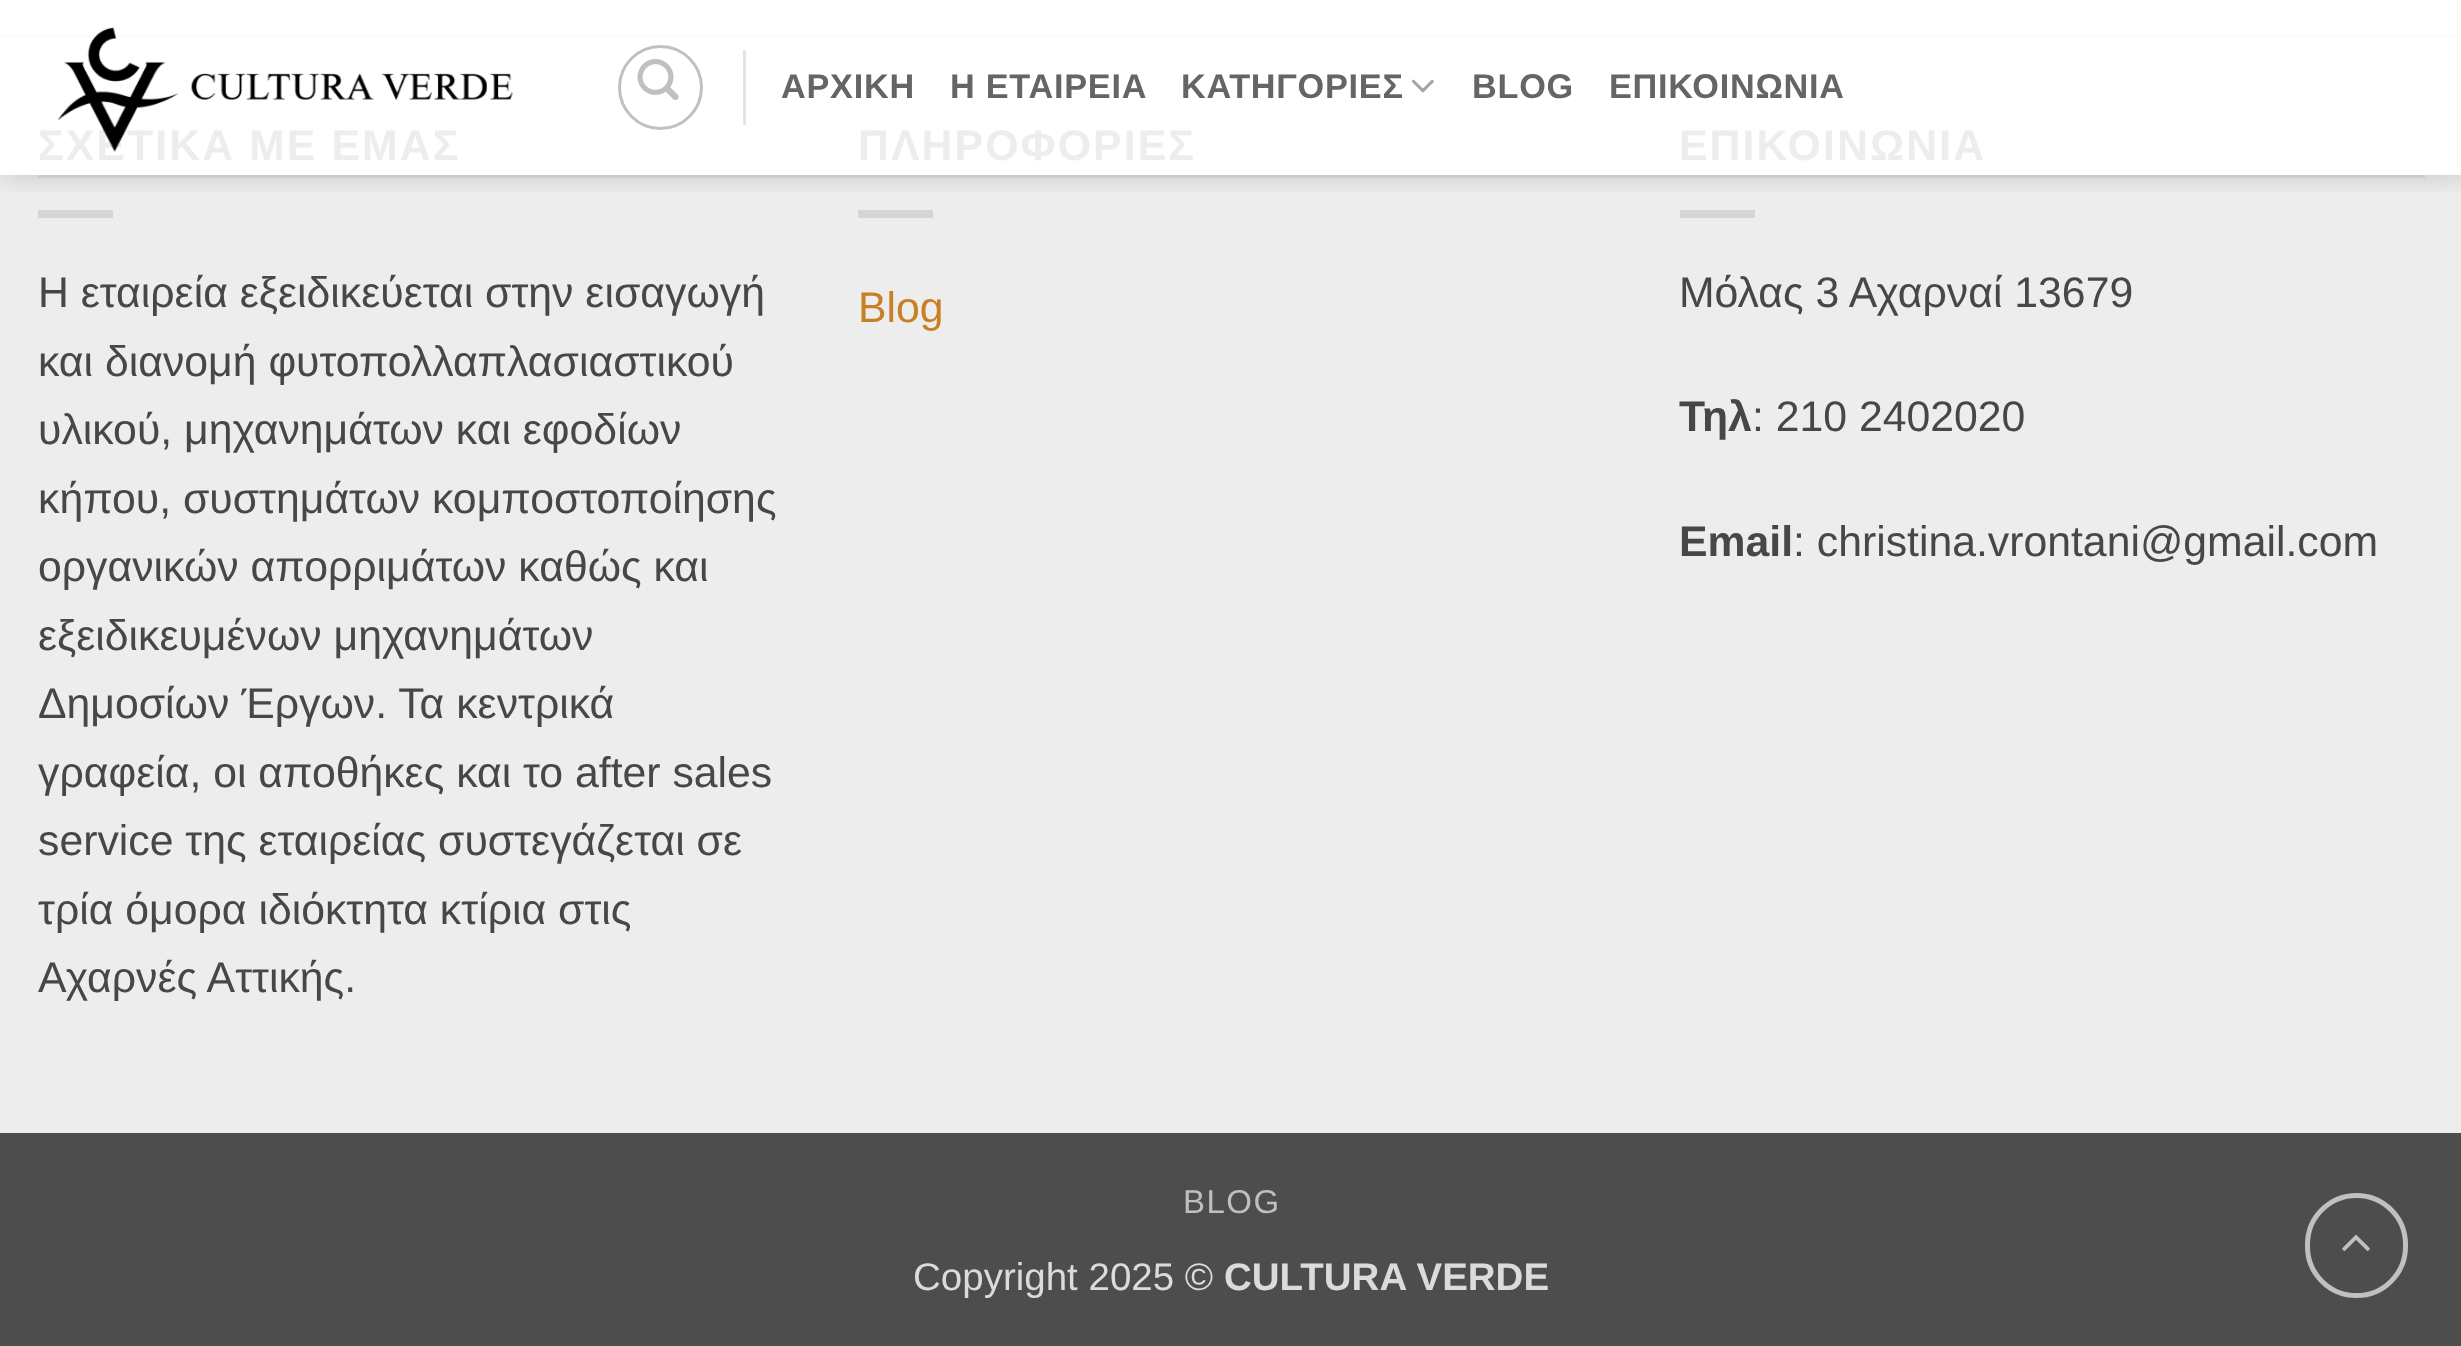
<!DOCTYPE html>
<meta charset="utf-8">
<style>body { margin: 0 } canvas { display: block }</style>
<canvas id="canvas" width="2461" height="1346"></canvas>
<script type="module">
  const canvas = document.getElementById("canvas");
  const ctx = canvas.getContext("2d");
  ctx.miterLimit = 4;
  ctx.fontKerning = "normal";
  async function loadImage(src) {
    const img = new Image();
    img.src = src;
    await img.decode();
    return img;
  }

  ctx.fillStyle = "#ffffff";
  ctx.fillRect(0, 0, 2461, 1346);
  ctx.fillStyle = "#ededed";
  ctx.fillRect(0, 175, 2461, 958);
  ctx.fillStyle = "#fcfcfc";
  ctx.fillRect(0, 35, 2461, 3);
  ctx.fillStyle = "#d5d5d5";
  ctx.fillRect(38, 210, 75, 8);
  ctx.fillRect(858, 210, 75, 8);
  ctx.fillRect(1680, 210, 75, 8);
  ctx.save();
  ctx.beginPath();
  ctx.rect(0, 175, 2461, 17);
  ctx.clip();
  ctx.fillStyle = "rgba(0, 0, 0, 0.15)";
  ctx.filter = "blur(12.5px)";
  ctx.beginPath();
  ctx.rect(3, 3, 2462, 175);
  ctx.fill();
  ctx.filter = "none";
  ctx.restore();
  ctx.letterSpacing = "2.1px";
  ctx.font = "bold 42.75px Liberation Sans";
  ctx.fillStyle = "#ededed";
  ctx.fillText("ΣΧΕΤΙΚΑ ΜΕ ΕΜΑΣ", 38, 160);
  ctx.drawImage(await loadImage("img1.png"), 57, 27, 456, 125);
  ctx.beginPath();
  ctx.arc(660.5, 87.5, 41, 0, Math.PI * 2);
  ctx.strokeStyle = "#c0c0c0";
  ctx.lineWidth = 3;
  ctx.stroke();
  ctx.drawImage(await loadImage("img2.png"), 637, 59, 42, 41);
  ctx.fillStyle = "#e4e4e4";
  ctx.fillRect(743, 50, 3, 75);
  ctx.letterSpacing = "0.75px";
  ctx.font = "bold 34.25px Liberation Sans";
  ctx.fillStyle = "#656565";
  ctx.fillText("ΑΡΧΙΚΗ", 781, 98);
  ctx.fillText("Η ΕΤΑΙΡΕΙΑ", 950, 98);
  ctx.fillText("ΚΑΤΗΓΟΡΙΕΣ", 1181, 98);
  ctx.drawImage(await loadImage("img3.png"), 1411, 79, 23, 14);
  ctx.fillText("BLOG", 1472, 98);
  ctx.fillText("ΕΠΙΚΟΙΝΩΝΙΑ", 1609, 98);
  ctx.fillStyle = "#cbcbcb";
  ctx.fillRect(38, 175, 2387, 3);
  ctx.letterSpacing = "0px";
  ctx.font = "42.75px Liberation Sans";
  ctx.fillStyle = "#474747";
  ctx.fillText("Η εταιρεία εξειδικεύεται στην εισαγωγή", 38, 307);
  ctx.fillText("και διανομή φυτοπολλαπλασιαστικού", 38, 376);
  ctx.fillText("υλικού, μηχανημάτων και εφοδίων", 38, 444);
  ctx.fillText("κήπου, συστημάτων κομποστοποίησης", 38, 513);
  ctx.fillText("οργανικών απορριμάτων καθώς και", 38, 581);
  ctx.fillText("εξειδικευμένων μηχανημάτων", 38, 650);
  ctx.fillText("Δημοσίων Έργων. Τα κεντρικά", 38, 718);
  ctx.fillText("γραφεία, οι αποθήκες και το after sales", 38, 787);
  ctx.fillText("service της εταιρείας συστεγάζεται σε", 38, 855);
  ctx.fillText("τρία όμορα ιδιόκτητα κτίρια στις", 38, 924);
  ctx.fillText("Αχαρνές Αττικής.", 38, 992);
  ctx.letterSpacing = "2.1px";
  ctx.font = "bold 42.75px Liberation Sans";
  ctx.fillStyle = "#ededed";
  ctx.fillText("ΠΛΗΡΟΦΟΡΙΕΣ", 858, 160);
  ctx.letterSpacing = "0px";
  ctx.font = "42.75px Liberation Sans";
  ctx.fillStyle = "#c97f24";
  ctx.fillText("Blog", 858, 322);
  ctx.letterSpacing = "2.1px";
  ctx.font = "bold 42.75px Liberation Sans";
  ctx.fillStyle = "#ededed";
  ctx.fillText("ΕΠΙΚΟΙΝΩΝΙΑ", 1679, 160);
  ctx.letterSpacing = "0px";
  ctx.font = "42.75px Liberation Sans";
  ctx.fillStyle = "#474747";
  ctx.fillText("Μόλας 3 Αχαρναί 13679", 1679, 307);
  ctx.font = "bold 42.75px Liberation Sans";
  ctx.fillText("Τηλ", 1679, 431);
  ctx.font = "42.75px Liberation Sans";
  ctx.fillText(": 210 2402020", 1752, 431);
  ctx.font = "bold 42.75px Liberation Sans";
  ctx.fillText("Email", 1679, 556);
  ctx.font = "42.75px Liberation Sans";
  ctx.fillText(": christina.vrontani@gmail.com", 1793, 556);
  ctx.fillStyle = "#4d4d4d";
  ctx.fillRect(0, 1133, 2461, 213);
  ctx.letterSpacing = "1.5px";
  ctx.font = "33px Liberation Sans";
  ctx.fillStyle = "#bfbfbf";
  ctx.fillText("BLOG", 1183, 1213);
  ctx.letterSpacing = "0px";
  ctx.font = "38.5px Liberation Sans";
  ctx.fillStyle = "#dbdbdb";
  ctx.fillText("Copyright 2025 ©", 913, 1290);
  ctx.font = "bold 38.5px Liberation Sans";
  ctx.fillText("CULTURA VERDE", 1224, 1290);
  ctx.beginPath();
  ctx.roundRect(2307.5, 1195.5, 98, 100, 49);
  ctx.lineWidth = 5;
  ctx.stroke();
  ctx.drawImage(await loadImage("img4.png"), 2342, 1234, 28, 17);
</script>
